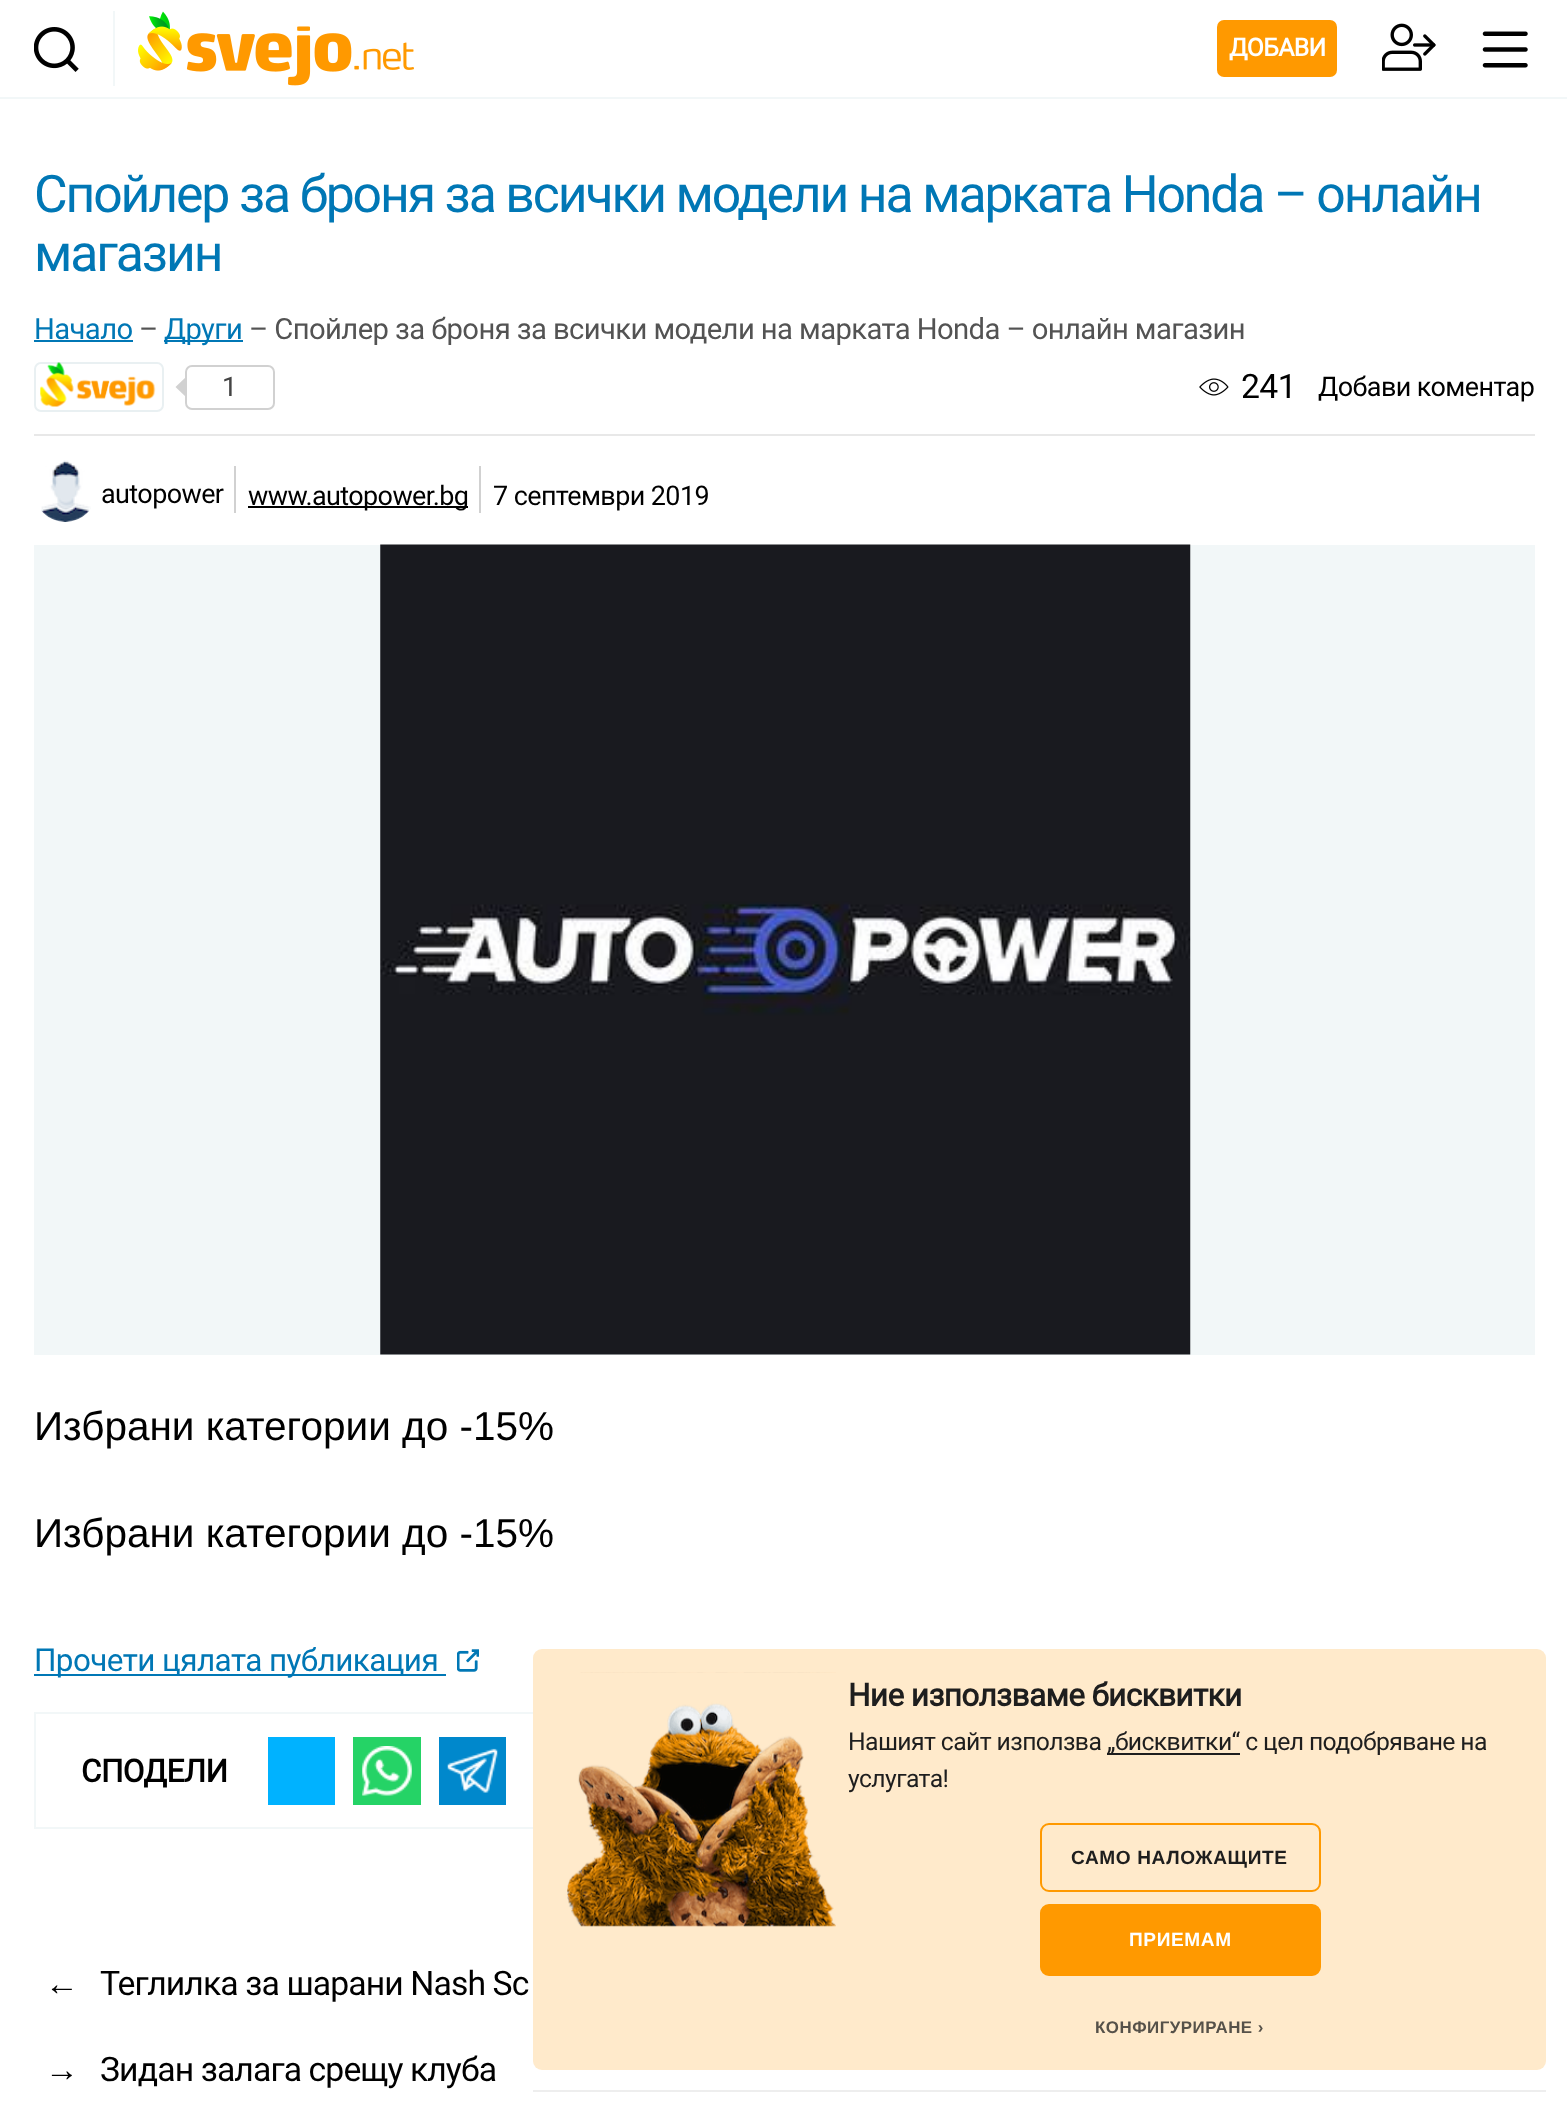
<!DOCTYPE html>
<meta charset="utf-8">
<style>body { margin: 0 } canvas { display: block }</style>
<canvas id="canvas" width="1567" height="2115"></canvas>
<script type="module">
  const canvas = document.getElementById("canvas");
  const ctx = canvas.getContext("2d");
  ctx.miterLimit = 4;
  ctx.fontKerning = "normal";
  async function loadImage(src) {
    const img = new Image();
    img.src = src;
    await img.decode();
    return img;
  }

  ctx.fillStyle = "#ffffff";
  ctx.fillRect(0, 0, 1567, 2115);
  ctx.fillStyle = "#f2f7f8";
  ctx.fillRect(0, 97, 1567, 2);
  ctx.drawImage(await loadImage("img1.png"), 34, 27, 45, 45);
  ctx.fillRect(113, 11, 2, 75);
  ctx.drawImage(await loadImage("img2.png"), 138, 11, 276, 75);
  ctx.fillStyle = "#ff9900";
  ctx.beginPath();
  ctx.roundRect(1217, 20, 120, 57, 7);
  ctx.fill();
  ctx.letterSpacing = "-0.6px";
  ctx.font = "bold 24.75px Roboto";
  ctx.fillStyle = "#ffffff";
  ctx.fillText("ДОБАВИ", 1229, 56);
  ctx.drawImage(await loadImage("img3.png"), 1382, 23, 54, 48);
  ctx.drawImage(await loadImage("img4.png"), 1482, 31, 46, 37);
  ctx.letterSpacing = "-2.15px";
  ctx.font = "51.75px Roboto";
  ctx.fillStyle = "#0077b5";
  ctx.fillText("Спойлер за броня за всички модели на марката Honda – онлайн", 34, 212);
  ctx.fillText("магазин", 34, 271);
  ctx.letterSpacing = "-0.6px";
  ctx.font = "29.25px Roboto";
  ctx.fillText("Начало", 34, 339);
  ctx.fillRect(34, 340, 99, 2);
  ctx.fillStyle = "#535353";
  ctx.fillText("–", 139, 339);
  ctx.fillStyle = "#0077b5";
  ctx.fillRect(164, 340, 79, 2);
  ctx.fillText("Други", 164, 339);
  ctx.fillStyle = "#535353";
  ctx.fillText("– Спойлер за броня за всички модели на марката Honda – онлайн магазин", 249, 339);
  ctx.beginPath();
  ctx.roundRect(35, 363, 128, 48, 6);
  ctx.strokeStyle = "#e9f0f2";
  ctx.lineWidth = 2;
  ctx.stroke();
  ctx.drawImage(await loadImage("img5.png"), 40, 362, 116, 45);
  ctx.beginPath();
  ctx.roundRect(186, 366, 88, 43, 6);
  ctx.strokeStyle = "#d1d1d1";
  ctx.stroke();
  ctx.fillStyle = "#d1d1d1";
  ctx.beginPath();
  ctx.moveTo(187, 376);
  ctx.lineTo(187, 398);
  ctx.lineTo(175.5, 387);
  ctx.closePath();
  ctx.fill();
  ctx.font = "27px Roboto";
  ctx.fillStyle = "#444444";
  ctx.fillText("1", 222, 396);
  ctx.drawImage(await loadImage("img6.png"), 1199, 378, 30, 18);
  ctx.font = "33.75px Roboto";
  ctx.fillStyle = "#000000";
  ctx.fillText("241", 1241, 398);
  ctx.font = "27px Roboto";
  ctx.fillText("Добави коментар", 1318, 396);
  ctx.fillStyle = "#e8e8e8";
  ctx.fillRect(34, 434, 1501, 2);
  ctx.drawImage(await loadImage("img7.png"), 41, 460, 50, 62);
  ctx.fillStyle = "#000000";
  ctx.fillText("autopower", 101, 503);
  ctx.fillStyle = "#d1d1d1";
  ctx.fillRect(234, 466, 2, 47);
  ctx.fillStyle = "#000000";
  ctx.fillRect(248, 506, 220, 2);
  ctx.fillText("www.autopower.bg", 248, 505);
  ctx.fillStyle = "#d1d1d1";
  ctx.fillRect(479, 466, 2, 47);
  ctx.fillStyle = "#000000";
  ctx.fillText("7 септември 2019", 493, 505);
  ctx.fillStyle = "#f2f7f8";
  ctx.fillRect(34, 545, 1501, 810);
  ctx.drawImage(await loadImage("img8.png"), 380, 544, 811, 811);
  ctx.letterSpacing = "0px";
  ctx.font = "40.5px Liberation Sans";
  ctx.fillStyle = "#000000";
  ctx.fillText("Избрани категории до -15%", 34, 1440);
  ctx.fillText("Избрани категории до -15%", 34, 1547);
  ctx.fillStyle = "#0077b5";
  ctx.fillRect(34, 1674, 412, 2);
  ctx.letterSpacing = "-0.6px";
  ctx.font = "31.5px Roboto";
  ctx.fillText("Прочети цялата публикация", 34, 1671);
  ctx.drawImage(await loadImage("img9.png"), 457, 1649, 22, 23);
  ctx.strokeStyle = "#f2f7f8";
  ctx.strokeRect(35, 1713, 1499, 115);
  ctx.font = "bold 31.5px Roboto";
  ctx.fillStyle = "#000000";
  ctx.fillText("СПОДЕЛИ", 81, 1782);
  ctx.fillStyle = "#00b2ff";
  ctx.fillRect(268, 1737, 67, 68);
  ctx.fillStyle = "#25d366";
  ctx.fillRect(353, 1737, 68, 68);
  ctx.drawImage(await loadImage("img10.png"), 362, 1746, 50, 50);
  ctx.fillStyle = "#0088cc";
  ctx.fillRect(439, 1737, 67, 68);
  ctx.drawImage(await loadImage("img11.png"), 447, 1748, 51, 45);
  ctx.letterSpacing = "-0.9px";
  ctx.font = "33.75px Liberation Sans";
  ctx.fillStyle = "#000000";
  ctx.fillText("←", 45, 1995);
  ctx.font = "33.75px Roboto";
  ctx.fillText("Теглилка за шарани Nash Sc", 100, 1995);
  ctx.font = "33.75px Liberation Sans";
  ctx.fillText("→", 45, 2081);
  ctx.font = "33.75px Roboto";
  ctx.fillText("Зидан залага срещу клуба", 100, 2081);
  ctx.fillStyle = "#ffeacb";
  ctx.beginPath();
  ctx.roundRect(533, 1649, 1013, 421, 9);
  ctx.fill();
  ctx.drawImage(await loadImage("img12.png"), 567, 1672, 269, 255);
  ctx.letterSpacing = "-0.6px";
  ctx.font = "bold 31.5px Roboto";
  ctx.fillStyle = "#1e1e1e";
  ctx.fillText("Ние използваме бисквитки", 848, 1706);
  ctx.font = "24.75px Roboto";
  ctx.fillText("Нашият сайт използва", 848, 1750);
  ctx.fillRect(1107, 1753, 133, 2);
  ctx.fillText("„бисквитки“ с цел подобряване на", 1107, 1750);
  ctx.fillText("услугата!", 848, 1787);
  ctx.beginPath();
  ctx.roundRect(1041, 1824, 279, 67, 8);
  ctx.strokeStyle = "#ff9900";
  ctx.stroke();
  ctx.letterSpacing = "0.6px";
  ctx.font = "bold 19.1px Liberation Sans";
  ctx.fillText("САМО НАЛОЖАЩИТЕ", 1071, 1864);
  ctx.fillStyle = "#ff9900";
  ctx.beginPath();
  ctx.roundRect(1041, 1905, 279, 70, 8);
  ctx.fill();
  ctx.stroke();
  ctx.fillStyle = "#ffffff";
  ctx.fillText("ПРИЕМАМ", 1129, 1946);
  ctx.letterSpacing = "0.5px";
  ctx.font = "bold 16.9px Liberation Sans";
  ctx.fillStyle = "#565149";
  ctx.fillText("КОНФИГУРИРАНЕ ›", 1095, 2033);
  ctx.fillStyle = "#eeeeee";
  ctx.fillRect(533, 2090, 1013, 2);
</script>
